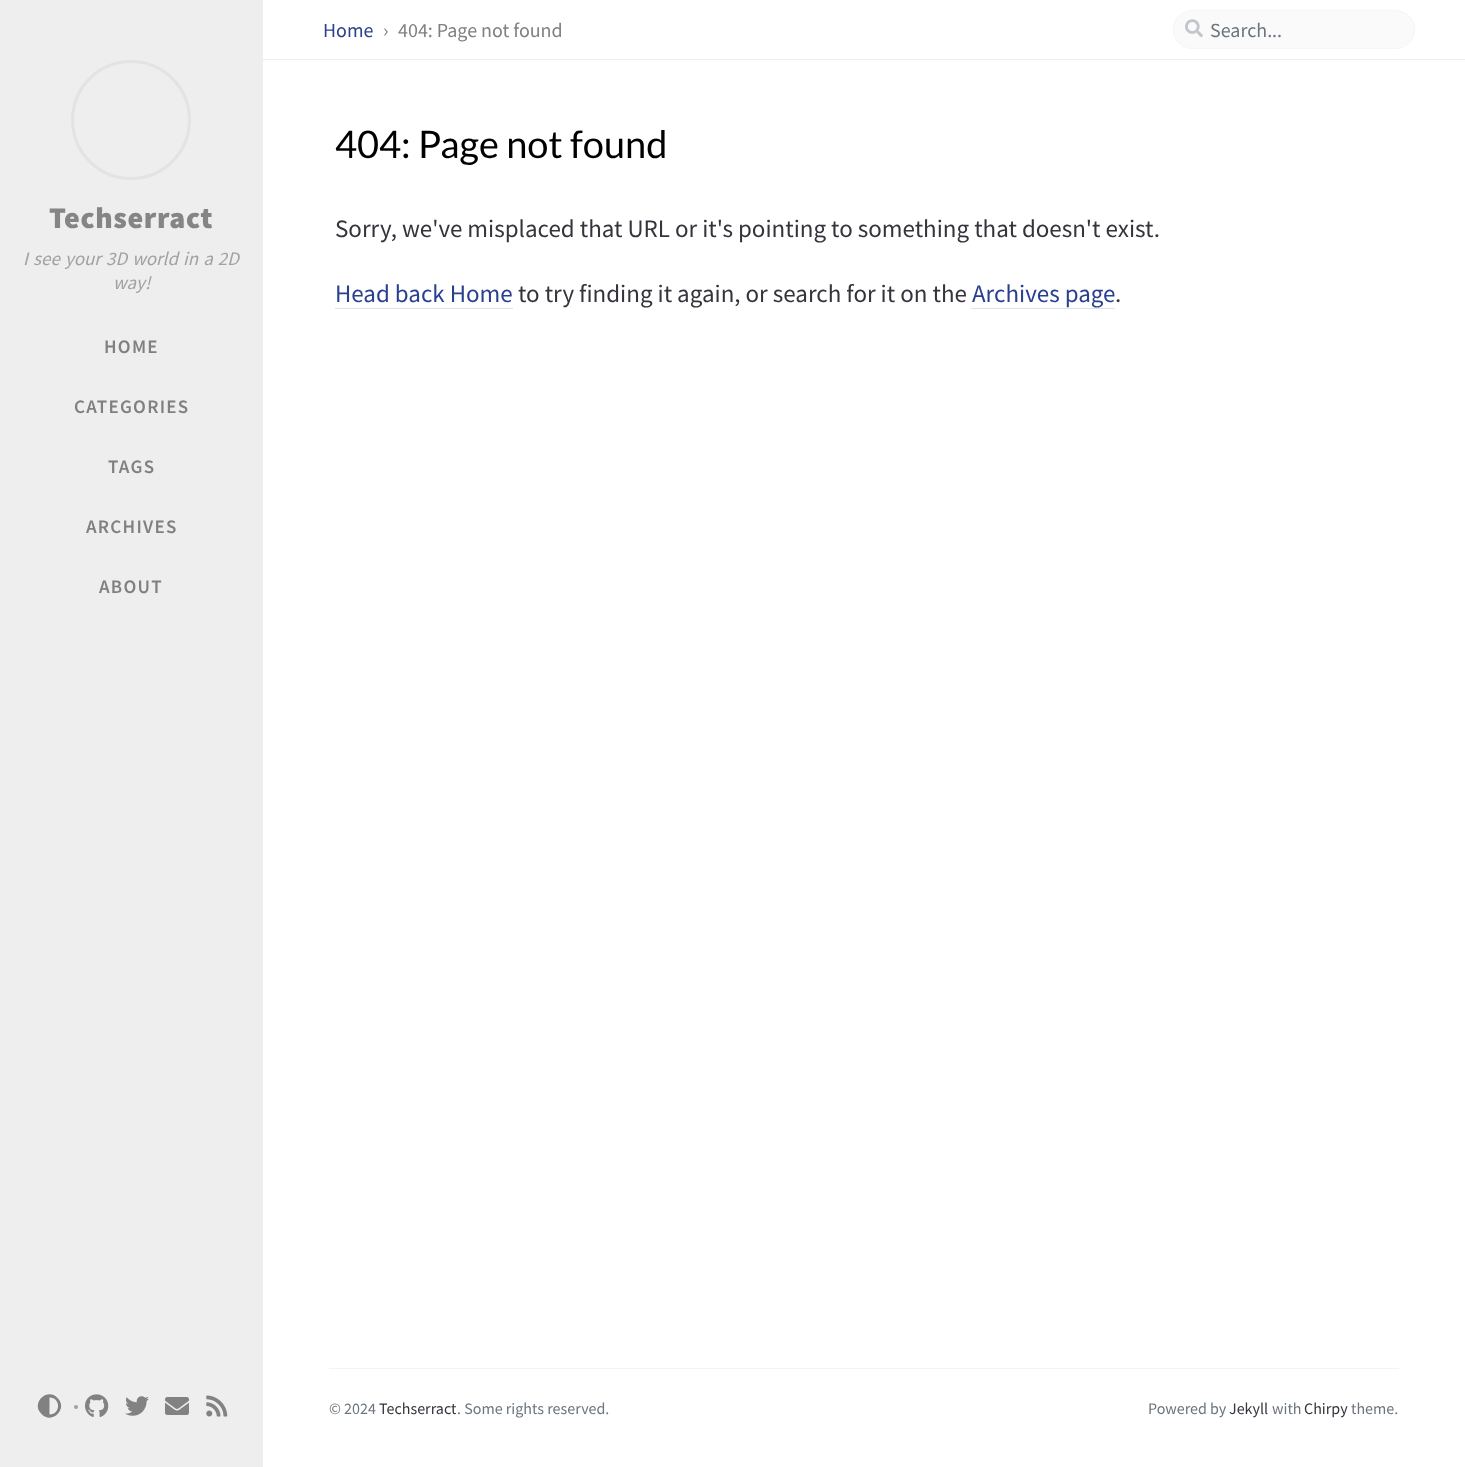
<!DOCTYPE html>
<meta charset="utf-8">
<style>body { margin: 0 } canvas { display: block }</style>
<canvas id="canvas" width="1465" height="1467"></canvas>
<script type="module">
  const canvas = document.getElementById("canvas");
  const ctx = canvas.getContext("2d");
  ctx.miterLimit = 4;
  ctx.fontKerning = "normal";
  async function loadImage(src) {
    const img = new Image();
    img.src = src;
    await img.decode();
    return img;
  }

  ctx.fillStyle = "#ffffff";
  ctx.fillRect(0, 0, 1465, 1467);
  ctx.fillStyle = "#ededed";
  ctx.fillRect(263, 59, 1202, 1);
  ctx.font = "20px Source Sans Pro";
  ctx.fillStyle = "#2a408e";
  ctx.fillText("Home", 323, 37);
  ctx.fillStyle = "#808080";
  ctx.fillText("›", 383, 37);
  ctx.fillText("404: Page not found", 398, 37);
  ctx.fillStyle = "#fafafa";
  ctx.beginPath();
  ctx.roundRect(1173.5, 10.5, 241, 38, 19);
  ctx.fill();
  ctx.strokeStyle = "#f5f5f5";
  ctx.stroke();
  ctx.drawImage(await loadImage("img1.png"), 1185, 19, 18, 19);
  ctx.fillStyle = "#6c757d";
  ctx.fillText("Search...", 1210, 37);
  ctx.fillStyle = "#eeeeee";
  ctx.fillRect(0, 0, 263, 1467);
  ctx.beginPath();
  ctx.arc(131, 120, 58.5, 0, Math.PI * 2);
  ctx.strokeStyle = "#e3e3e3";
  ctx.lineWidth = 3;
  ctx.stroke();
  ctx.letterSpacing = "0.6px";
  ctx.font = "900 30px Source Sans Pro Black";
  ctx.fillStyle = "#868585";
  ctx.fillText("Techserract", 49, 228);
  ctx.letterSpacing = "0px";
  ctx.wordSpacing = "1.25px";
  ctx.font = "italic 19px Source Sans Pro";
  ctx.fillStyle = "#a2a19f";
  ctx.fillText("I see your 3D world in a 2D", 23, 265);
  ctx.wordSpacing = "0px";
  ctx.fillText("way!", 113, 289);
  ctx.letterSpacing = "1.25px";
  ctx.font = "600 19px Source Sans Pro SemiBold";
  ctx.fillStyle = "#808080";
  ctx.fillText("HOME", 104, 353);
  ctx.fillText("CATEGORIES", 74, 413);
  ctx.fillText("TAGS", 108, 473);
  ctx.fillText("ARCHIVES", 86, 533);
  ctx.fillText("ABOUT", 99, 593);
  ctx.fillStyle = "#818181";
  ctx.beginPath();
  ctx.moveTo(41.5, 1414);
  ctx.bezierCurveTo(30.5, 1403.5, 47, 1387, 57.5, 1398);
  ctx.bezierCurveTo(68.5, 1408.5, 52, 1425, 41.5, 1414);
  ctx.closePath();
  ctx.moveTo(49.5, 1414.5);
  ctx.bezierCurveTo(61, 1414.5, 61, 1397.5, 49.5, 1397.5);
  ctx.closePath();
  ctx.fill();
  ctx.fillStyle = "#a2a19f";
  ctx.beginPath();
  ctx.arc(76, 1407, 2, 0, Math.PI * 2);
  ctx.fill();
  ctx.drawImage(await loadImage("img2.png"), 85, 1394, 24, 23);
  ctx.drawImage(await loadImage("img3.png"), 125, 1396, 24, 20);
  ctx.drawImage(await loadImage("img4.png"), 165, 1397, 24, 18);
  ctx.drawImage(await loadImage("img5.png"), 206, 1395, 22, 22);
  ctx.letterSpacing = "0px";
  ctx.font = "38px Lato";
  ctx.fillStyle = "#000000";
  ctx.fillText("404: Page not found", 335, 158);
  ctx.font = "25px Source Sans Pro";
  ctx.fillStyle = "#34343c";
  ctx.fillText("Sorry, we've misplaced that URL or it's pointing to something that doesn't exist.", 335, 237);
  ctx.fillStyle = "#2a408e";
  ctx.fillText("Head back Home", 335, 302);
  ctx.fillStyle = "#dee2e6";
  ctx.fillRect(335, 308, 178, 1);
  ctx.fillStyle = "#34343c";
  ctx.fillText("to try finding it again, or search for it on the", 518, 302);
  ctx.fillStyle = "#2a408e";
  ctx.fillText("Archives page", 972, 302);
  ctx.fillStyle = "#dee2e6";
  ctx.fillRect(971, 308, 144, 1);
  ctx.fillStyle = "#34343c";
  ctx.fillText(".", 1115, 302);
  ctx.fillStyle = "#f3f3f3";
  ctx.fillRect(329, 1368, 1070, 1);
  ctx.font = "16px Source Sans Pro";
  ctx.fillStyle = "#6c757d";
  ctx.fillText("© 2024", 329, 1414);
  ctx.fillStyle = "#34343c";
  ctx.fillText("Techserract", 379, 1414);
  ctx.fillStyle = "#6c757d";
  ctx.fillText(". Some rights reserved.", 457, 1414);
  ctx.fillText("Powered by", 1148, 1414);
  ctx.fillStyle = "#34343c";
  ctx.fillText("Jekyll", 1229, 1414);
  ctx.fillStyle = "#6c757d";
  ctx.fillText("with", 1272, 1414);
  ctx.fillStyle = "#34343c";
  ctx.fillText("Chirpy", 1304, 1414);
  ctx.fillStyle = "#6c757d";
  ctx.fillText("theme.", 1351, 1414);
</script>
